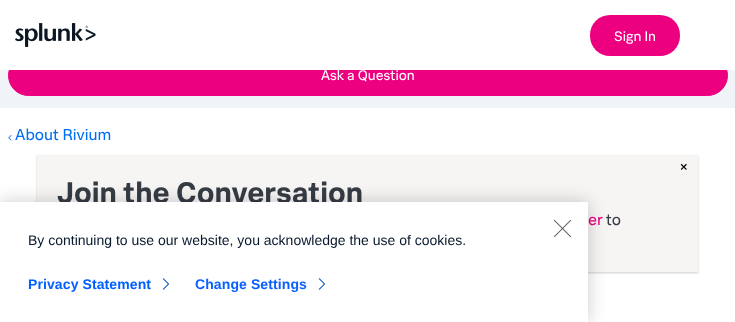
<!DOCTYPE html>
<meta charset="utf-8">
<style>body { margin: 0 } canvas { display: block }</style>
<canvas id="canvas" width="735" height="322"></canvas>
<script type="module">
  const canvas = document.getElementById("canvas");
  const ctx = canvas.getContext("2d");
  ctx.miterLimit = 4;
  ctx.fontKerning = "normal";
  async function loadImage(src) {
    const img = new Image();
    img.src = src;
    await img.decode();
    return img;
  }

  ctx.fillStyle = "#ffffff";
  ctx.fillRect(0, 0, 735, 322);
  ctx.fillStyle = "#f0f3f7";
  ctx.fillRect(0, 70, 735, 38);
  ctx.fillStyle = "#ed0080";
  ctx.beginPath();
  ctx.roundRect(8.5, 55.5, 719, 40, 20);
  ctx.fill();
  ctx.strokeStyle = "#ed0080";
  ctx.stroke();
  ctx.fillStyle = "#ffffff";
  ctx.fillRect(8, 55, 720, 15);
  ctx.drawImage(await loadImage("img1.png"), 15, 23, 81, 24);
  ctx.fillStyle = "#ed0080";
  ctx.beginPath();
  ctx.roundRect(590, 15, 90, 41, 20);
  ctx.fill();
  ctx.font = "14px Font";
  ctx.fillStyle = "#ffffff";
  ctx.fillText("Sign In", 614, 41);
  ctx.fillText("Ask a Question", 321, 80);
  ctx.drawImage(await loadImage("img2.png"), 8, 135, 4, 6);
  ctx.font = "16px Font";
  ctx.fillStyle = "#0070f3";
  ctx.fillText("About Rivium", 15, 140);
  ctx.fillStyle = "rgba(0, 0, 0, 0.2)";
  ctx.filter = "blur(1px)";
  ctx.beginPath();
  ctx.rect(37, 156, 661, 117);
  ctx.fill();
  ctx.filter = "none";
  ctx.fillStyle = "#f7f4f4";
  ctx.fillRect(37, 155, 661, 117);
  ctx.fillStyle = "#000000";
  ctx.fillText("×", 679, 172);
  ctx.font = "bold 30px Font";
  ctx.fillStyle = "#363c44";
  ctx.fillText("Join the Conversation", 57, 203);
  ctx.font = "16px Font";
  ctx.fillStyle = "#ed0080";
  ctx.fillText("er", 588, 225);
  ctx.fillStyle = "#363c44";
  ctx.fillText("to", 606, 225);
  ctx.fillStyle = "rgba(0, 0, 0, 0.2)";
  ctx.filter = "blur(9px)";
  ctx.beginPath();
  ctx.rect(0, 202, 588, 120);
  ctx.fill();
  ctx.filter = "none";
  ctx.fillStyle = "#ffffff";
  ctx.fillRect(0, 202, 588, 120);
  ctx.drawImage(await loadImage("img3.png"), 553, 219, 19, 19);
  ctx.font = "14px Liberation Sans";
  ctx.fillStyle = "#07182d";
  ctx.fillText("By continuing to use our website, you acknowledge the use of cookies.", 28, 245);
  ctx.letterSpacing = "0.1px";
  ctx.font = "bold 14px Liberation Sans";
  ctx.fillStyle = "#0060ff";
  ctx.fillText("Privacy Statement", 28, 289);
  ctx.drawImage(await loadImage("img4.png"), 162, 278, 7, 12);
  ctx.fillStyle = "#0a60ff";
  ctx.fillText("Change Settings", 195, 289);
  ctx.drawImage(await loadImage("img4.png"), 318, 278, 7, 12);
</script>
